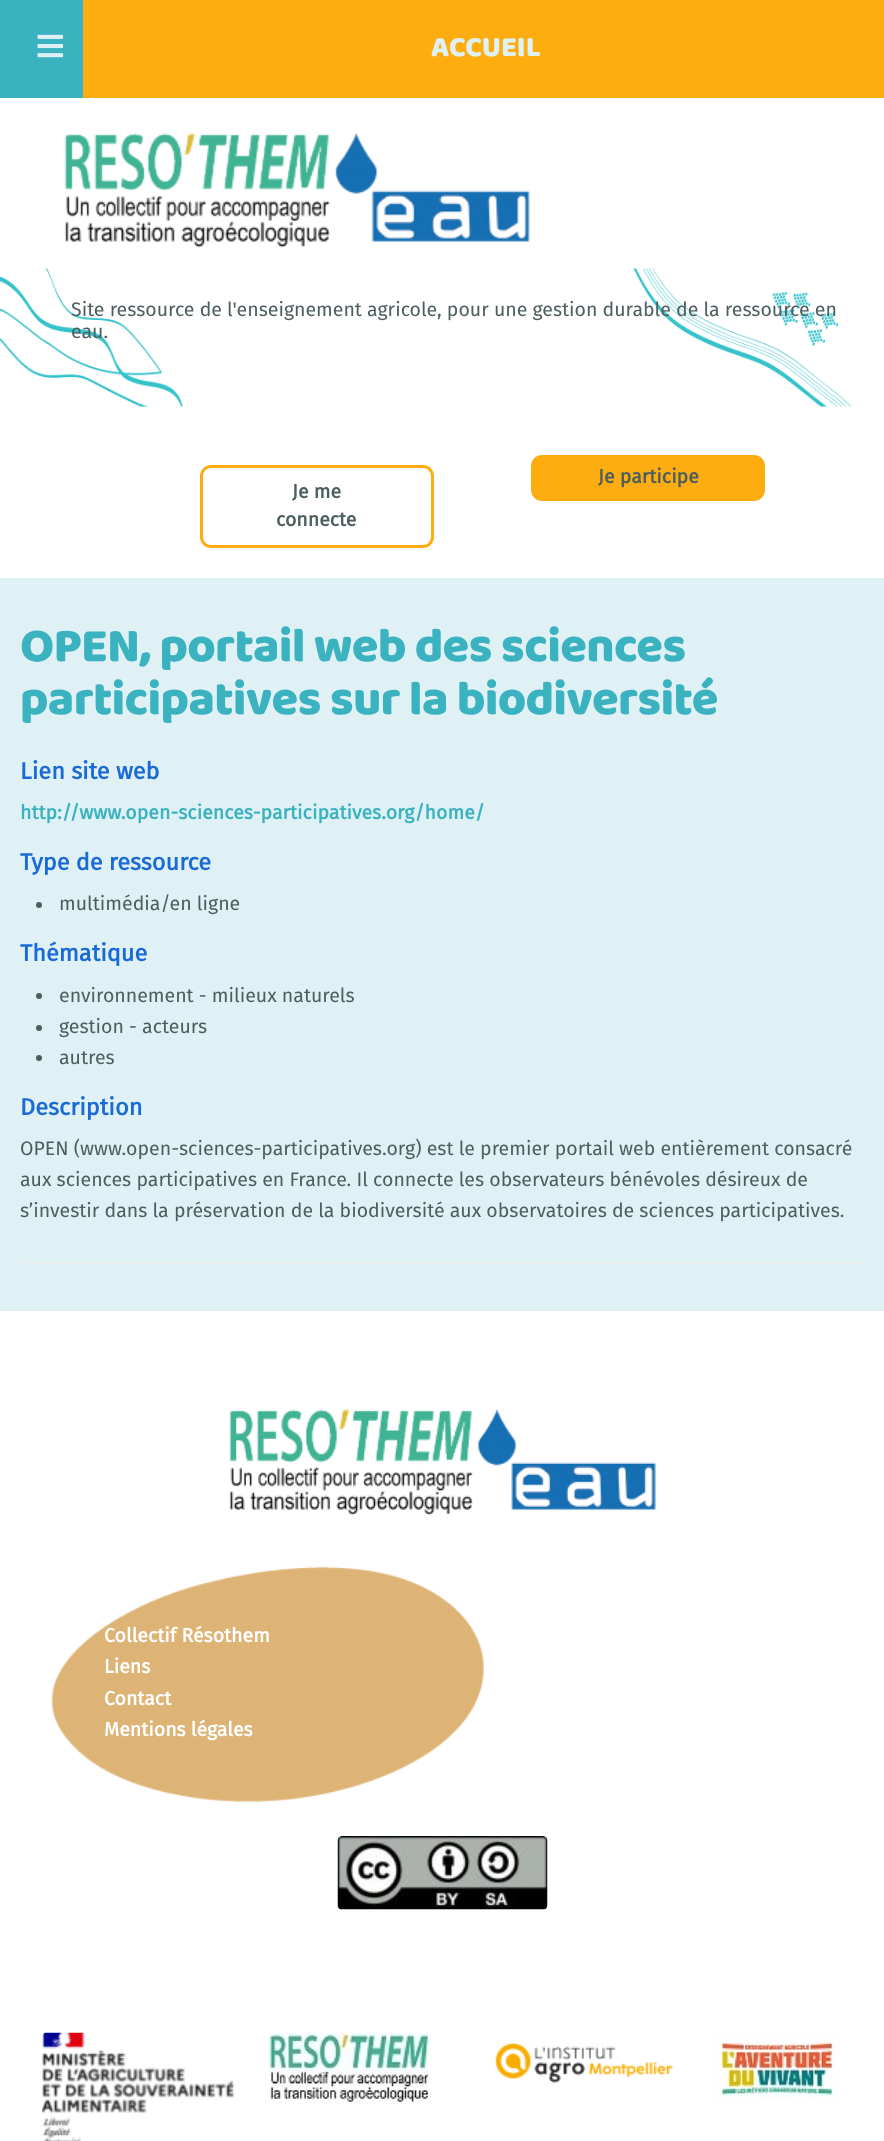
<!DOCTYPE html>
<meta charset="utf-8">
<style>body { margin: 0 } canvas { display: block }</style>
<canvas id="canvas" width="884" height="2141"></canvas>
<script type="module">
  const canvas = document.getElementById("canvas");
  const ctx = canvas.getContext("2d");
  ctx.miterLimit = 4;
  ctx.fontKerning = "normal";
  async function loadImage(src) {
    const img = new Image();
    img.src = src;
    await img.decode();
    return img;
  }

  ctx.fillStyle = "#dff1f5";
  ctx.fillRect(0, 0, 884, 2141);
  ctx.fillStyle = "#3bb2bf";
  ctx.fillRect(0, 0, 83, 98);
  ctx.drawImage(await loadImage("img1.png"), 37, 34, 27, 24);
  ctx.fillStyle = "#fead10";
  ctx.fillRect(83, 0, 801, 98);
  ctx.font = "800 29px 'Baloo 2'";
  ctx.fillStyle = "#dff1f5";
  ctx.fillText("ACCUEIL", 431, 56);
  ctx.fillStyle = "#ffffff";
  ctx.fillRect(0, 98, 884, 480);
  ctx.drawImage(await loadImage("img2.png"), 0, 268, 852, 139);
  ctx.drawImage(await loadImage("img3.png"), 64, 133, 466, 115);
  ctx.font = "19.5px Fira Sans";
  ctx.fillStyle = "#4c5e5e";
  ctx.fillText("Site ressource de l'enseignement agricole, pour une gestion durable de la ressource en", 71, 316);
  ctx.fillText("eau.", 71, 338);
  ctx.fillStyle = "#fead10";
  ctx.beginPath();
  ctx.roundRect(531, 455, 234, 46, 11);
  ctx.fill();
  ctx.font = "bold 19.5px Fira Sans";
  ctx.fillStyle = "#4c5e5e";
  ctx.fillText("Je participe", 598, 483);
  ctx.beginPath();
  ctx.roundRect(201.5, 466.5, 231, 80, 9.5);
  ctx.strokeStyle = "#fead10";
  ctx.lineWidth = 3;
  ctx.stroke();
  ctx.fillText("Je me", 292, 498);
  ctx.fillText("connecte", 276, 526);
  ctx.letterSpacing = "-0.75px";
  ctx.font = "800 48.75px 'Baloo 2'";
  ctx.fillStyle = "#3bb2bf";
  ctx.fillText("OPEN, portail web des sciences", 20, 661);
  ctx.fillText("participatives sur la biodiversité", 20, 714);
  ctx.letterSpacing = "0px";
  ctx.font = "bold 23.5px Fira Sans";
  ctx.fillStyle = "#1b6bd6";
  ctx.fillText("Lien site web", 20, 779);
  ctx.font = "bold 19.5px Fira Sans";
  ctx.fillStyle = "#3bb2bf";
  ctx.fillText("http://www.open-sciences-participatives.org/home/", 20, 819);
  ctx.font = "bold 23.5px Fira Sans";
  ctx.fillStyle = "#1b6bd6";
  ctx.fillText("Type de ressource", 20, 870);
  ctx.fillStyle = "#4c5e5e";
  ctx.beginPath();
  ctx.arc(39, 905, 3, 0, Math.PI * 2);
  ctx.fill();
  ctx.font = "19.5px Fira Sans";
  ctx.fillText("multimédia/en ligne", 59, 910);
  ctx.font = "bold 23.5px Fira Sans";
  ctx.fillStyle = "#1b6bd6";
  ctx.fillText("Thématique", 20, 961);
  ctx.fillStyle = "#4c5e5e";
  ctx.beginPath();
  ctx.arc(39, 996, 3, 0, Math.PI * 2);
  ctx.fill();
  ctx.font = "19.5px Fira Sans";
  ctx.fillText("environnement - milieux naturels", 59, 1002);
  ctx.beginPath();
  ctx.arc(39, 1028, 3, 0, Math.PI * 2);
  ctx.fill();
  ctx.fillText("gestion - acteurs", 59, 1033);
  ctx.beginPath();
  ctx.arc(39, 1058, 3, 0, Math.PI * 2);
  ctx.fill();
  ctx.fillText("autres", 59, 1064);
  ctx.font = "bold 23.5px Fira Sans";
  ctx.fillStyle = "#1b6bd6";
  ctx.fillText("Description", 20, 1115);
  ctx.font = "19.5px Fira Sans";
  ctx.fillStyle = "#4c5e5e";
  ctx.fillText("OPEN (www.open-sciences-participatives.org) est le premier portail web entièrement consacré", 20, 1155);
  ctx.fillText("aux sciences participatives en France. Il connecte les observateurs bénévoles désireux de", 20, 1186);
  ctx.fillText("s’investir dans la préservation de la biodiversité aux observatoires de sciences participatives.", 20, 1217);
  ctx.fillStyle = "#ebefef";
  ctx.fillRect(20, 1262, 846, 2);
  ctx.fillStyle = "#ffffff";
  ctx.fillRect(0, 1311, 884, 830);
  ctx.drawImage(await loadImage("img4.png"), 229, 1409, 428, 107);
  ctx.drawImage(await loadImage("img5.png"), 51, 1566, 433, 237);
  ctx.font = "bold 19.5px Fira Sans";
  ctx.fillText("Collectif Résothem", 104, 1642);
  ctx.fillText("Liens", 104, 1673);
  ctx.fillText("Contact", 104, 1705);
  ctx.fillText("Mentions légales", 104, 1736);
  ctx.drawImage(await loadImage("img6.png"), 337, 1836, 211, 74);
  ctx.drawImage(await loadImage("img7.png"), 42, 2032, 193, 109);
  ctx.drawImage(await loadImage("img8.png"), 268, 2032, 162, 71);
  ctx.drawImage(await loadImage("img9.png"), 494, 2042, 179, 41);
  ctx.drawImage(await loadImage("img10.png"), 711, 2033, 129, 67);
</script>
